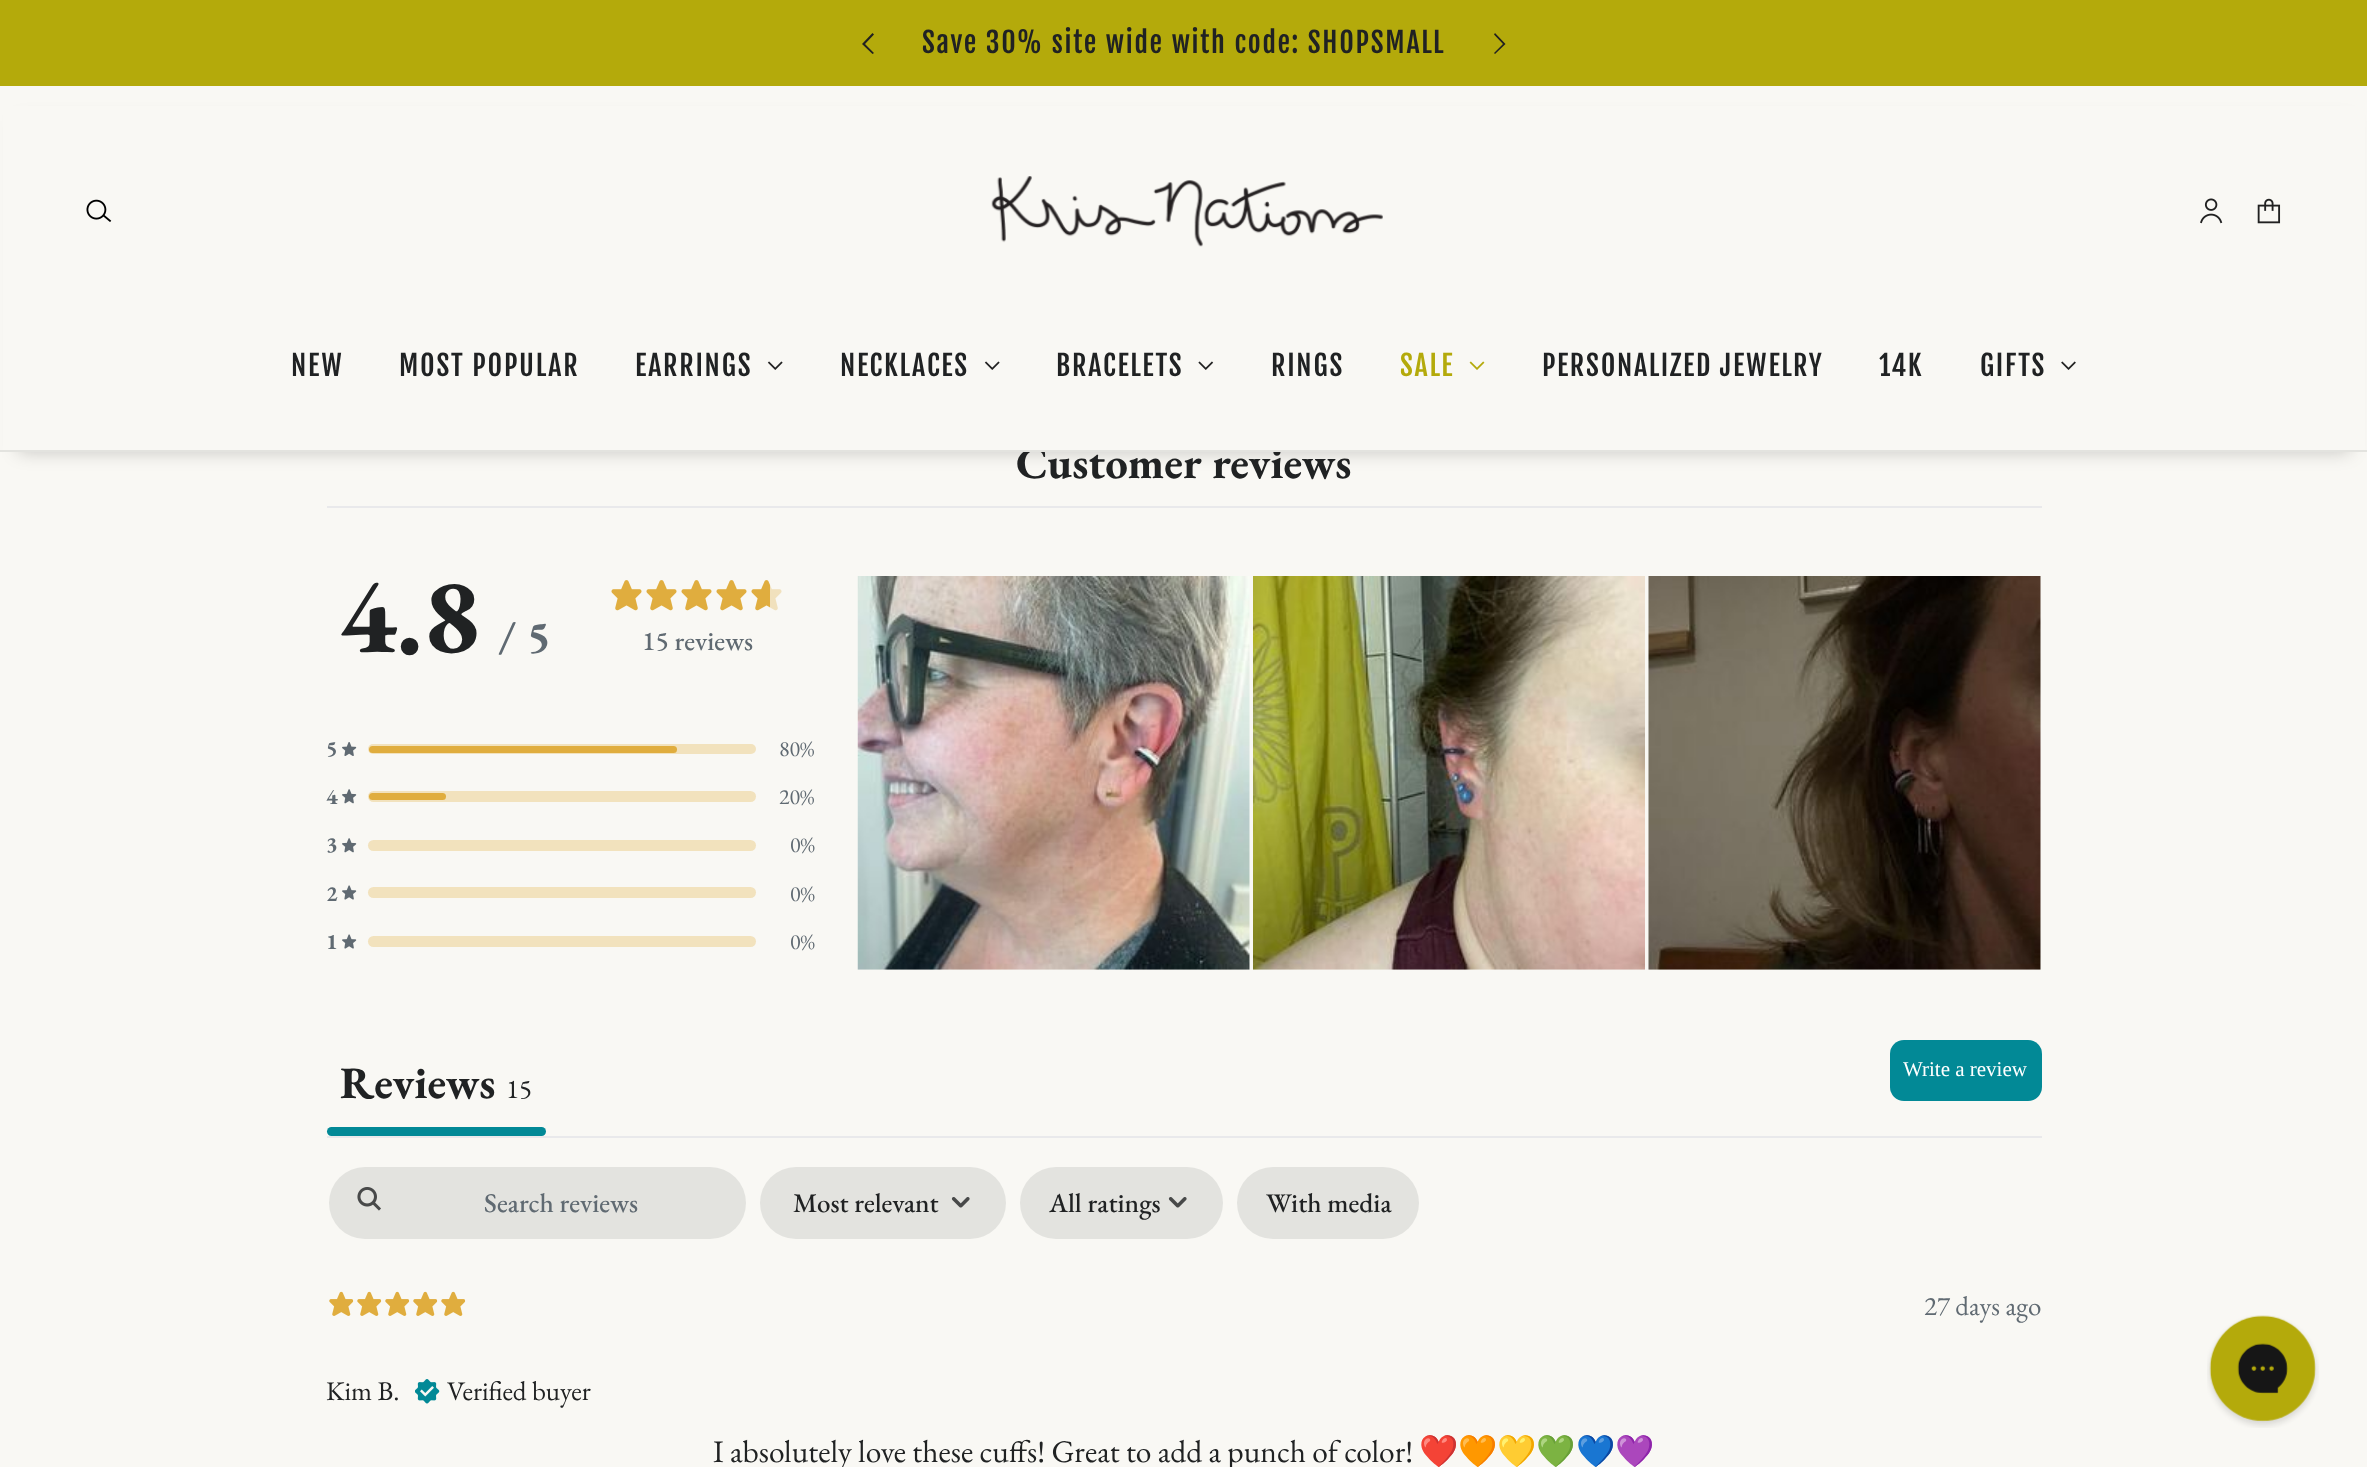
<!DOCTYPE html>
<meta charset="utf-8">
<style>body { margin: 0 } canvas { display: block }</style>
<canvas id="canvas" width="2367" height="1467"></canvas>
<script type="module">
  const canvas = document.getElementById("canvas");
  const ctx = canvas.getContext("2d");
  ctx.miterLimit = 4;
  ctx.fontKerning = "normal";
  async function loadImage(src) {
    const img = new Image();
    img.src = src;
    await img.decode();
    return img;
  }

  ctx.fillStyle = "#f9f8f4";
  ctx.fillRect(0, 0, 2367, 1467);
  ctx.fillStyle = "#b4aa0b";
  ctx.fillRect(0, 0, 2367, 86);
  ctx.fillStyle = "#212121";
  ctx.beginPath();
  ctx.moveTo(865, 44);
  ctx.lineTo(874, 53);
  ctx.lineTo(872.5, 54);
  ctx.lineTo(862, 44);
  ctx.lineTo(872.5, 33);
  ctx.lineTo(874, 34.5);
  ctx.closePath();
  ctx.fill();
  ctx.letterSpacing = "1.75px";
  ctx.font = "28px Fjalla One";
  ctx.fillStyle = "#202223";
  ctx.fillText("Save 30% site wide with code: SHOPSMALL", 922, 53);
  ctx.fillStyle = "#212121";
  ctx.beginPath();
  ctx.moveTo(1503, 44);
  ctx.lineTo(1494, 34.5);
  ctx.lineTo(1495, 33);
  ctx.lineTo(1505.5, 44);
  ctx.lineTo(1495, 54);
  ctx.lineTo(1494, 53);
  ctx.closePath();
  ctx.fill();
  ctx.fillStyle = "rgba(0, 0, 0, 0.2)";
  ctx.filter = "blur(9px)";
  ctx.beginPath();
  ctx.rect(18, 121, 2332, 331);
  ctx.fill();
  ctx.filter = "none";
  ctx.letterSpacing = "0px";
  ctx.font = "bold 45px EB Garamond";
  ctx.fillStyle = "#202223";
  ctx.fillText("Customer reviews", 1016, 478);
  ctx.fillStyle = "#f9f8f4";
  ctx.fillRect(3, 106, 2362, 344);
  ctx.drawImage(await loadImage("img1.png"), 86, 199, 26, 23);
  ctx.drawImage(await loadImage("img2.png"), 991, 176, 392, 71);
  ctx.drawImage(await loadImage("img3.png"), 2200, 198, 23, 26);
  ctx.drawImage(await loadImage("img4.png"), 2257, 198, 24, 26);
  ctx.letterSpacing = "1.75px";
  ctx.font = "28px Fjalla One";
  ctx.fillStyle = "#202223";
  ctx.fillText("NEW", 291, 376);
  ctx.fillText("MOST POPULAR", 399, 376);
  ctx.fillText("EARRINGS", 635, 376);
  ctx.drawImage(await loadImage("img5.png"), 767, 361, 16, 9);
  ctx.fillText("NECKLACES", 840, 376);
  ctx.drawImage(await loadImage("img5.png"), 984, 361, 16, 9);
  ctx.fillText("BRACELETS", 1056, 376);
  ctx.drawImage(await loadImage("img6.png"), 1198, 361, 16, 9);
  ctx.fillText("RINGS", 1271, 376);
  ctx.fillStyle = "#b4aa0b";
  ctx.fillText("SALE", 1400, 376);
  ctx.drawImage(await loadImage("img7.png"), 1469, 361, 16, 9);
  ctx.fillStyle = "#202223";
  ctx.fillText("PERSONALIZED JEWELRY", 1542, 376);
  ctx.fillText("14K", 1879, 376);
  ctx.fillText("GIFTS", 1980, 376);
  ctx.drawImage(await loadImage("img8.png"), 2061, 361, 15, 9);
  ctx.fillStyle = "#e3e3df";
  ctx.fillRect(0, 450, 2367, 2);
  ctx.fillStyle = "#e9e9eb";
  ctx.fillRect(327, 506, 1715, 2);
  ctx.letterSpacing = "0px";
  ctx.font = "bold 108px EB Garamond";
  ctx.fillStyle = "#202223";
  ctx.fillText("4.8", 339, 652);
  ctx.font = "bold 45px EB Garamond";
  ctx.fillStyle = "#606a72";
  ctx.fillText("/ 5", 498, 652);
  ctx.drawImage(await loadImage("img9.png"), 611, 580, 31, 31);
  ctx.drawImage(await loadImage("img9.png"), 646, 580, 31, 31);
  ctx.drawImage(await loadImage("img9.png"), 681, 580, 31, 31);
  ctx.drawImage(await loadImage("img9.png"), 716, 580, 31, 31);
  ctx.drawImage(await loadImage("img10.png"), 751, 580, 31, 31);
  ctx.font = "500 27px EB Garamond";
  ctx.fillText("15 reviews", 642, 650);
  ctx.font = "bold 22px EB Garamond";
  ctx.fillText("5", 326, 756);
  ctx.drawImage(await loadImage("img11.png"), 342, 742, 15, 14);
  ctx.fillStyle = "#f2e2bd";
  ctx.beginPath();
  ctx.roundRect(368, 744, 388, 10, 5);
  ctx.fill();
  ctx.fillStyle = "#e0ad3e";
  ctx.beginPath();
  ctx.roundRect(369, 746, 308, 7, 3.5);
  ctx.fill();
  ctx.font = "22px EB Garamond";
  ctx.fillStyle = "#606a72";
  ctx.fillText("80%", 779, 756);
  ctx.font = "bold 22px EB Garamond";
  ctx.fillText("4", 326, 804);
  ctx.drawImage(await loadImage("img12.png"), 342, 789, 15, 15);
  ctx.fillStyle = "#f2e2bd";
  ctx.beginPath();
  ctx.roundRect(368, 791, 388, 11, 5.5);
  ctx.fill();
  ctx.fillStyle = "#e0ad3e";
  ctx.beginPath();
  ctx.roundRect(369, 793, 77, 7, 3.5);
  ctx.fill();
  ctx.font = "22px EB Garamond";
  ctx.fillStyle = "#606a72";
  ctx.fillText("20%", 779, 804);
  ctx.font = "bold 22px EB Garamond";
  ctx.fillText("3", 326, 852);
  ctx.drawImage(await loadImage("img12.png"), 342, 838, 15, 15);
  ctx.fillStyle = "#f2e2bd";
  ctx.beginPath();
  ctx.roundRect(368, 840, 388, 11, 5.5);
  ctx.fill();
  ctx.font = "22px EB Garamond";
  ctx.fillStyle = "#606a72";
  ctx.fillText("0%", 790, 852);
  ctx.font = "bold 22px EB Garamond";
  ctx.fillText("2", 326, 901);
  ctx.drawImage(await loadImage("img13.png"), 342, 885, 15, 15);
  ctx.fillStyle = "#f2e2bd";
  ctx.beginPath();
  ctx.roundRect(368, 887, 388, 11, 5.5);
  ctx.fill();
  ctx.font = "22px EB Garamond";
  ctx.fillStyle = "#606a72";
  ctx.fillText("0%", 790, 901);
  ctx.font = "bold 22px EB Garamond";
  ctx.fillText("1", 326, 949);
  ctx.drawImage(await loadImage("img13.png"), 342, 934, 15, 15);
  ctx.fillStyle = "#f2e2bd";
  ctx.beginPath();
  ctx.roundRect(368, 936, 388, 11, 5.5);
  ctx.fill();
  ctx.font = "22px EB Garamond";
  ctx.fillStyle = "#606a72";
  ctx.fillText("0%", 790, 949);
  ctx.drawImage(await loadImage("img14.png"), 857, 576, 393, 394);
  ctx.drawImage(await loadImage("img15.png"), 1253, 576, 392, 394);
  ctx.drawImage(await loadImage("img16.png"), 1648, 576, 393, 394);
  ctx.fillStyle = "#e9e9eb";
  ctx.fillRect(327, 1136, 1715, 2);
  ctx.font = "bold 45px EB Garamond";
  ctx.fillStyle = "#202223";
  ctx.fillText("Reviews", 340, 1098);
  ctx.font = "27px EB Garamond";
  ctx.fillText("15", 506, 1098);
  ctx.fillStyle = "#028996";
  ctx.beginPath();
  ctx.roundRect(327, 1127, 219, 9, 4.5);
  ctx.fill();
  ctx.beginPath();
  ctx.roundRect(1890, 1040, 152, 61, 14);
  ctx.fill();
  ctx.font = "21px Liberation Serif";
  ctx.fillStyle = "#ffffff";
  ctx.fillText("Write a review", 1903, 1076);
  ctx.fillStyle = "#e3e3df";
  ctx.beginPath();
  ctx.roundRect(329, 1167, 417, 72, 36);
  ctx.fill();
  ctx.drawImage(await loadImage("img17.png"), 357, 1187, 24, 24);
  ctx.font = "500 27px EB Garamond";
  ctx.fillStyle = "#606a72";
  ctx.fillText("Search reviews", 484, 1212);
  ctx.fillStyle = "#e3e3df";
  ctx.beginPath();
  ctx.roundRect(760, 1167, 246, 72, 36);
  ctx.fill();
  ctx.fillStyle = "#202223";
  ctx.fillText("Most relevant", 793, 1212);
  ctx.drawImage(await loadImage("img18.png"), 951, 1197, 19, 11);
  ctx.fillStyle = "#e3e3df";
  ctx.beginPath();
  ctx.roundRect(1020, 1167, 203, 72, 36);
  ctx.fill();
  ctx.fillStyle = "#202223";
  ctx.fillText("All ratings", 1049, 1212);
  ctx.drawImage(await loadImage("img18.png"), 1168, 1197, 19, 11);
  ctx.fillStyle = "#e3e3df";
  ctx.beginPath();
  ctx.roundRect(1237, 1167, 182, 72, 36);
  ctx.fill();
  ctx.fillStyle = "#202223";
  ctx.fillText("With media", 1266, 1212);
  ctx.drawImage(await loadImage("img19.png"), 329, 1291, 25, 25);
  ctx.drawImage(await loadImage("img19.png"), 357, 1291, 25, 25);
  ctx.drawImage(await loadImage("img19.png"), 385, 1291, 25, 25);
  ctx.drawImage(await loadImage("img19.png"), 413, 1291, 25, 25);
  ctx.drawImage(await loadImage("img19.png"), 441, 1291, 25, 25);
  ctx.font = "27px EB Garamond";
  ctx.fillStyle = "#606a72";
  ctx.fillText("27 days ago", 1924, 1315);
  ctx.fillStyle = "#202223";
  ctx.fillText("Kim B.", 326, 1400);
  ctx.drawImage(await loadImage("img20.png"), 415, 1379, 25, 25);
  ctx.fillText("Verified buyer", 447, 1400);
  ctx.font = "31.5px EB Garamond";
  ctx.fillText("I absolutely love these cuffs! Great to add a punch of color!", 713, 1462);
  ctx.font = "31.5px Noto Color Emoji";
  ctx.fillText("❤️🧡💛💚💙💜", 1419, 1462);
  ctx.drawImage(await loadImage("img21.png"), 2207, 1315, 112, 113);
</script>
